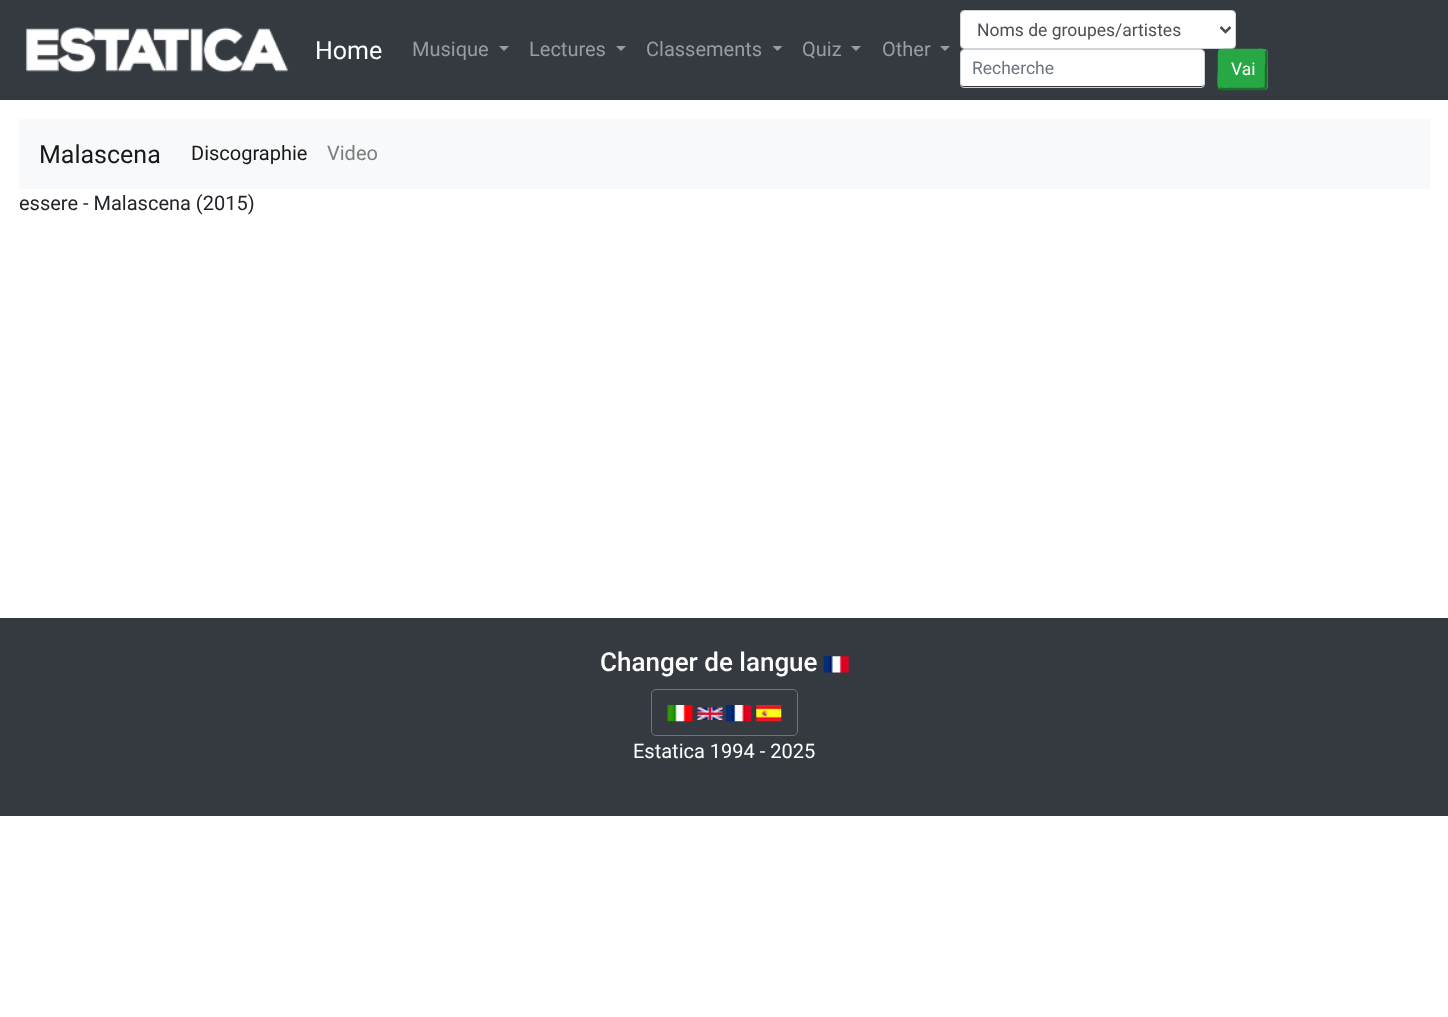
<!DOCTYPE html>
<meta charset="utf-8">
<style>body { margin: 0 } canvas { display: block }</style>
<canvas id="canvas" width="1448" height="1017"></canvas>
<script type="module">
  const canvas = document.getElementById("canvas");
  const ctx = canvas.getContext("2d");
  ctx.miterLimit = 4;
  ctx.fontKerning = "normal";
  async function loadImage(src) {
    const img = new Image();
    img.src = src;
    await img.decode();
    return img;
  }

  ctx.fillStyle = "#ffffff";
  ctx.fillRect(0, 0, 1448, 1017);
  ctx.fillStyle = "#343a40";
  ctx.fillRect(0, 0, 1448, 100);
  ctx.drawImage(await loadImage("img1.png"), 25, 27, 264, 47);
  ctx.font = "25px Roboto";
  ctx.fillStyle = "#ffffff";
  ctx.fillText("Home", 315, 59);
  ctx.font = "20px Roboto";
  ctx.fillStyle = "#9a9da0";
  ctx.fillText("Musique", 412, 56);
  ctx.beginPath();
  ctx.moveTo(499, 46);
  ctx.lineTo(509, 46);
  ctx.lineTo(504, 51);
  ctx.closePath();
  ctx.fill();
  ctx.fillText("Lectures", 529, 56);
  ctx.beginPath();
  ctx.moveTo(616, 46);
  ctx.lineTo(626, 46);
  ctx.lineTo(621, 51);
  ctx.closePath();
  ctx.fill();
  ctx.fillText("Classements", 646, 56);
  ctx.beginPath();
  ctx.moveTo(772.5, 46);
  ctx.lineTo(782.5, 46);
  ctx.lineTo(777.5, 51);
  ctx.closePath();
  ctx.fill();
  ctx.fillText("Quiz", 802, 56);
  ctx.beginPath();
  ctx.moveTo(851, 46);
  ctx.lineTo(861, 46);
  ctx.lineTo(856, 51);
  ctx.closePath();
  ctx.fill();
  ctx.fillText("Other", 882, 56);
  ctx.beginPath();
  ctx.moveTo(940, 46);
  ctx.lineTo(950, 46);
  ctx.lineTo(945, 51);
  ctx.closePath();
  ctx.fill();
  ctx.fillStyle = "#ffffff";
  ctx.beginPath();
  ctx.roundRect(961, 11, 274, 37, 2.5);
  ctx.fill();
  ctx.beginPath();
  ctx.roundRect(960.5, 10.5, 275, 38, 3.5);
  ctx.strokeStyle = "#ced4da";
  ctx.stroke();
  ctx.beginPath();
  ctx.moveTo(1220.5, 27);
  ctx.lineTo(1225.5, 32);
  ctx.lineTo(1230.5, 27);
  ctx.strokeStyle = "#495057";
  ctx.lineWidth = 2.5;
  ctx.stroke();
  ctx.font = "17.5px Roboto";
  ctx.fillStyle = "#495057";
  ctx.fillText("Noms de groupes/artistes", 977, 36);
  ctx.fillStyle = "#ffffff";
  ctx.beginPath();
  ctx.roundRect(961, 50, 243, 36, 2.5);
  ctx.fill();
  ctx.beginPath();
  ctx.roundRect(960.5, 49.5, 244, 38, 3.5);
  ctx.strokeStyle = "#ced4da";
  ctx.lineWidth = 1;
  ctx.stroke();
  ctx.fillStyle = "#6c757d";
  ctx.fillText("Recherche", 972, 74);
  ctx.fillStyle = "#28a745";
  ctx.beginPath();
  ctx.roundRect(1218, 49, 50, 41, 4);
  ctx.fill();
  ctx.beginPath();
  ctx.moveTo(1265.5, 51);
  ctx.bezierCurveTo(1267.5, 53, 1266, 66.5, 1266, 69.5);
  ctx.lineTo(1266, 80.5);
  ctx.bezierCurveTo(1266, 90, 1266.5, 89, 1256.5, 89);
  ctx.lineTo(1228.5, 89);
  ctx.bezierCurveTo(1228, 89, 1221.5, 90, 1219.5, 88);
  ctx.strokeStyle = "#1b6f2e";
  ctx.lineWidth = 2.5;
  ctx.stroke();
  ctx.beginPath();
  ctx.moveTo(1219.5, 88);
  ctx.bezierCurveTo(1217.5, 86, 1219, 72.5, 1219, 69.5);
  ctx.lineTo(1219, 58.5);
  ctx.bezierCurveTo(1219, 48.5, 1218.5, 50, 1228.5, 50);
  ctx.lineTo(1256.5, 50);
  ctx.bezierCurveTo(1257, 50, 1263.5, 49, 1265.5, 51);
  ctx.strokeStyle = "#28a745";
  ctx.stroke();
  ctx.fillStyle = "#ffffff";
  ctx.fillText("Vai", 1231, 75);
  ctx.fillStyle = "#f8f9fa";
  ctx.fillRect(19, 119, 1411, 70);
  ctx.font = "25px Roboto";
  ctx.fillStyle = "#191919";
  ctx.fillText("Malascena", 39, 163);
  ctx.font = "20px Roboto";
  ctx.fillText("Discographie", 191, 160);
  ctx.fillStyle = "#7c7d7d";
  ctx.fillText("Video", 327, 160);
  ctx.fillStyle = "#212529";
  ctx.fillText("essere - Malascena (2015)", 19, 210);
  ctx.fillStyle = "#343a40";
  ctx.fillRect(0, 618, 1448, 198);
  ctx.font = "500 26px Roboto";
  ctx.fillStyle = "#ffffff";
  ctx.fillText("Changer de langue", 600, 671);
  ctx.drawImage(await loadImage("img2.png"), 823, 656, 26, 17);
  ctx.beginPath();
  ctx.roundRect(651.5, 689.5, 146, 46, 4.5);
  ctx.strokeStyle = "#6c757d";
  ctx.lineWidth = 1;
  ctx.stroke();
  ctx.drawImage(await loadImage("img3.png"), 667, 705, 26, 17);
  ctx.drawImage(await loadImage("img4.png"), 697, 707, 26, 13);
  ctx.drawImage(await loadImage("img5.png"), 726, 705, 26, 17);
  ctx.drawImage(await loadImage("img6.png"), 756, 705, 26, 17);
  ctx.font = "20px Roboto";
  ctx.fillText("Estatica 1994 - 2025", 633, 758);
</script>
